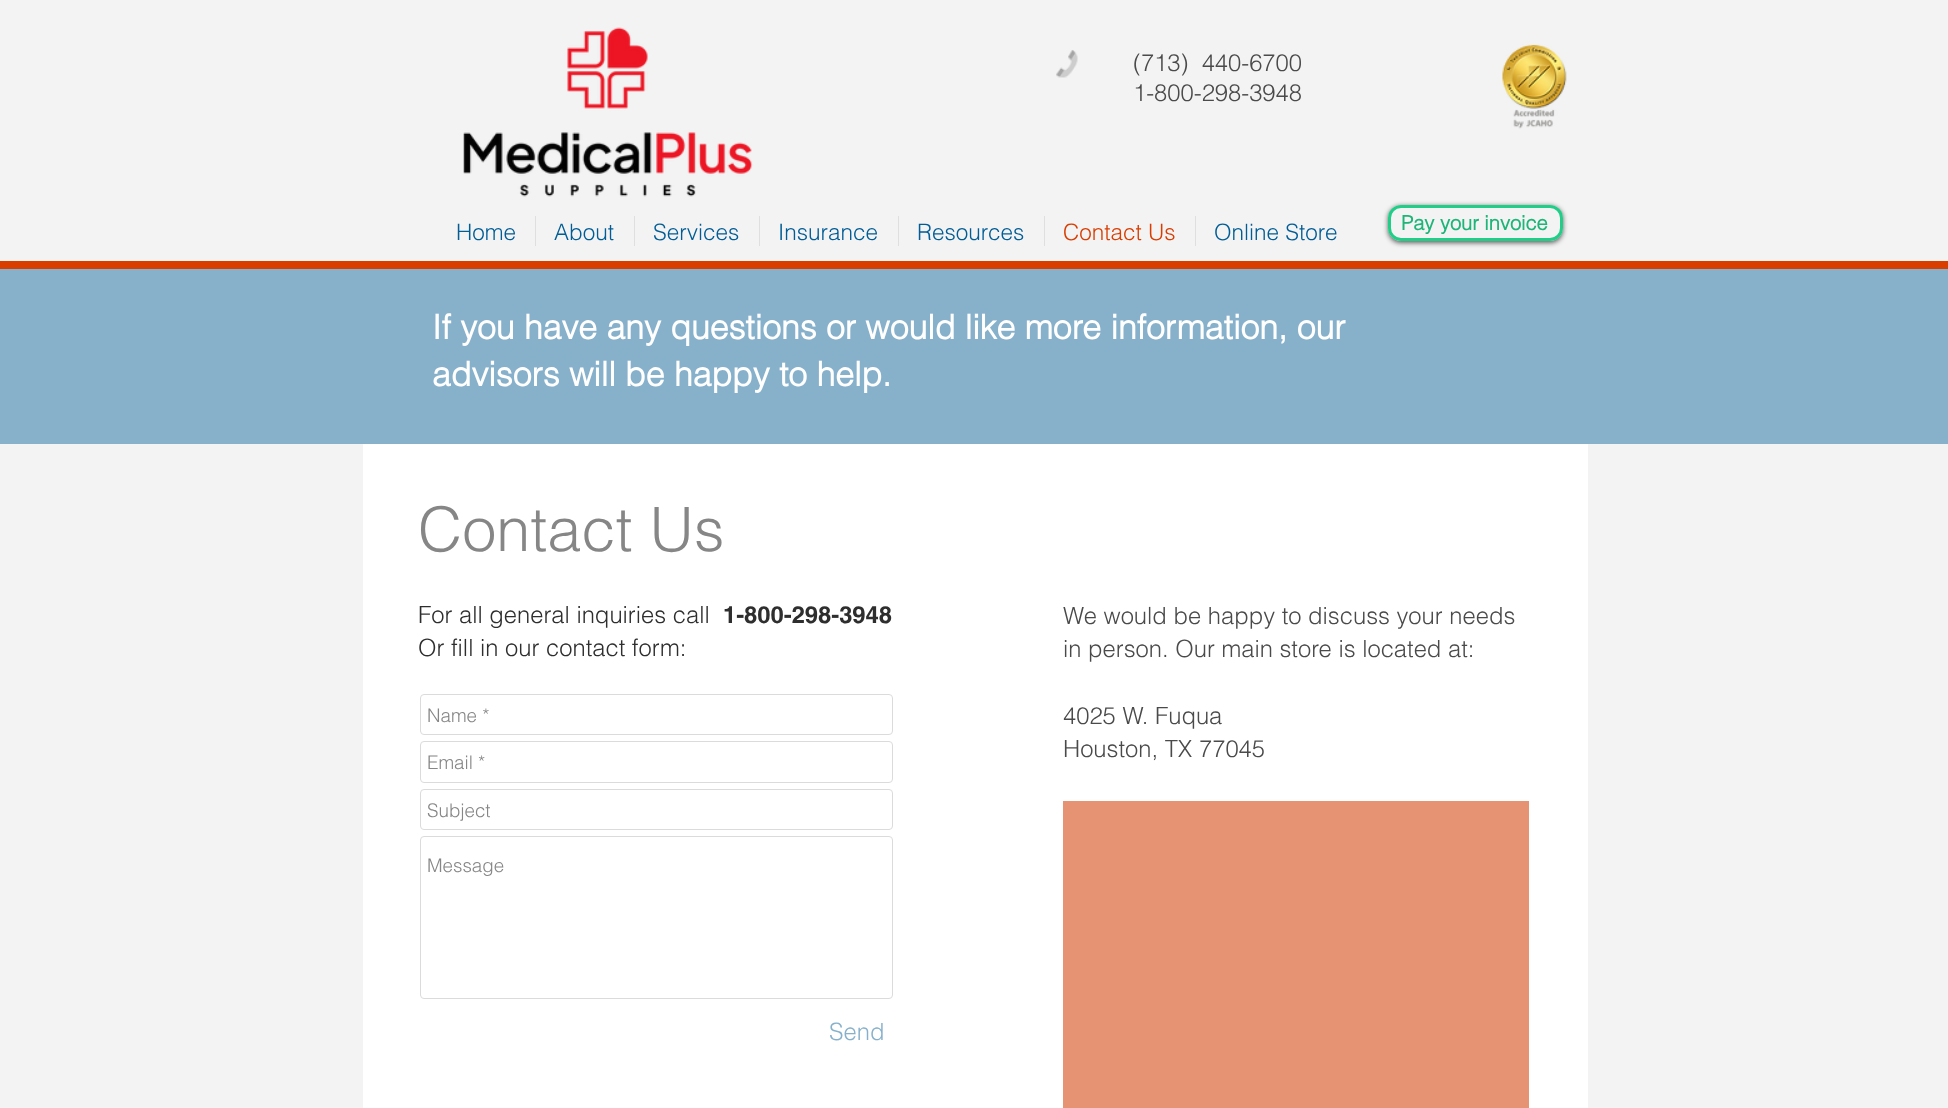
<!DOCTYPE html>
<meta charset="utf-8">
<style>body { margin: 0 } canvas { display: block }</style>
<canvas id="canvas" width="1948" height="1108"></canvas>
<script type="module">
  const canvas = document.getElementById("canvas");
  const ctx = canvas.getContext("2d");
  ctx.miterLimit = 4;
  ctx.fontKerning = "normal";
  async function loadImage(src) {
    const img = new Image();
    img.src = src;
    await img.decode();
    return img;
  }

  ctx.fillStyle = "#f3f3f3";
  ctx.fillRect(0, 0, 1948, 1108);
  ctx.drawImage(await loadImage("img1.png"), 463, 27, 290, 170);
  ctx.drawImage(await loadImage("img2.png"), 1056, 50, 22, 28);
  ctx.font = "300 23.75px helvetica";
  ctx.fillStyle = "#4a4a4a";
  ctx.fillText("(713)  440-6700", 1133, 71);
  ctx.fillText("1-800-298-3948", 1133, 101);
  ctx.drawImage(await loadImage("img3.png"), 1502, 44, 65, 85);
  ctx.font = "300 22.5px helvetica";
  ctx.fillStyle = "#005d96";
  ctx.fillText("Home", 456, 240);
  ctx.fillStyle = "#dfdfdf";
  ctx.fillRect(535, 216, 1, 30);
  ctx.fillStyle = "#005d96";
  ctx.fillText("About", 554, 240);
  ctx.fillStyle = "#dfdfdf";
  ctx.fillRect(634, 216, 1, 30);
  ctx.fillStyle = "#005d96";
  ctx.fillText("Services", 653, 240);
  ctx.fillStyle = "#dfdfdf";
  ctx.fillRect(759, 216, 1, 30);
  ctx.fillStyle = "#005d96";
  ctx.fillText("Insurance", 778, 240);
  ctx.fillStyle = "#dfdfdf";
  ctx.fillRect(898, 216, 1, 30);
  ctx.fillStyle = "#005d96";
  ctx.fillText("Resources", 917, 240);
  ctx.fillStyle = "#dfdfdf";
  ctx.fillRect(1044, 216, 1, 30);
  ctx.fillStyle = "#d93d00";
  ctx.fillText("Contact Us", 1063, 240);
  ctx.fillStyle = "#dfdfdf";
  ctx.fillRect(1195, 216, 1, 30);
  ctx.fillStyle = "#005d96";
  ctx.fillText("Online Store", 1214, 240);
  ctx.save();
  ctx.beginPath();
  ctx.moveTo(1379, 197);
  ctx.lineTo(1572, 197);
  ctx.lineTo(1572, 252);
  ctx.lineTo(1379, 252);
  ctx.closePath();
  ctx.moveTo(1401, 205);
  ctx.lineTo(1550, 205);
  ctx.bezierCurveTo(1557, 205, 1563, 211, 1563, 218);
  ctx.lineTo(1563, 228);
  ctx.bezierCurveTo(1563, 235, 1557, 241, 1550, 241);
  ctx.lineTo(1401, 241);
  ctx.bezierCurveTo(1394, 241, 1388, 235, 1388, 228);
  ctx.lineTo(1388, 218);
  ctx.bezierCurveTo(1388, 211, 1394, 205, 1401, 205);
  ctx.closePath();
  ctx.clip("evenodd");
  ctx.fillStyle = "rgba(0, 0, 0, 0.6)";
  ctx.filter = "blur(2.5px)";
  ctx.beginPath();
  ctx.roundRect(1388, 206, 175, 37, 13);
  ctx.fill();
  ctx.filter = "none";
  ctx.restore();
  ctx.beginPath();
  ctx.roundRect(1389.5, 206.5, 172, 33, 11.5);
  ctx.strokeStyle = "#20ce88";
  ctx.lineWidth = 3;
  ctx.stroke();
  ctx.font = "bold 20px helvetica";
  ctx.fillStyle = "#1db578";
  ctx.fillText("Pay your invoice", 1401, 230);
  ctx.fillStyle = "#d93d00";
  ctx.fillRect(0, 261, 1948, 8);
  ctx.fillStyle = "#87b1cb";
  ctx.fillRect(0, 269, 1948, 175);
  ctx.font = "bold 33.75px helvetica";
  ctx.fillStyle = "#ffffff";
  ctx.fillText("If you have any questions or would like more information, our", 432, 339);
  ctx.fillText("advisors will be happy to help.", 432, 386);
  ctx.fillRect(363, 444, 1225, 664);
  ctx.font = "300 61.25px helvetica";
  ctx.fillStyle = "#868686";
  ctx.fillText("Contact Us", 418, 551);
  ctx.font = "300 23.75px helvetica";
  ctx.fillStyle = "#2f2e2e";
  ctx.fillText("For all general inquiries call", 418, 623);
  ctx.font = "bold 23.75px 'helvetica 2'";
  ctx.fillText("1-800-298-3948", 723, 623);
  ctx.font = "300 23.75px helvetica";
  ctx.fillText("Or fill in our contact form:", 418, 656);
  ctx.fillStyle = "#4a4a4a";
  ctx.fillText("We would be happy to discuss your needs", 1063, 624);
  ctx.fillText("in person. Our main store is located at:", 1063, 657);
  ctx.fillText("4025 W. Fuqua", 1063, 724);
  ctx.fillText("Houston, TX 77045", 1063, 757);
  ctx.beginPath();
  ctx.roundRect(420.5, 694.5, 472, 40, 3.5);
  ctx.strokeStyle = "#dbdbdb";
  ctx.lineWidth = 1;
  ctx.stroke();
  ctx.font = "300 18.75px helvetica";
  ctx.fillStyle = "#868686";
  ctx.fillText("Name *", 427, 722);
  ctx.beginPath();
  ctx.roundRect(420.5, 741.5, 472, 41, 3.5);
  ctx.stroke();
  ctx.fillText("Email *", 427, 769);
  ctx.beginPath();
  ctx.roundRect(420.5, 789.5, 472, 40, 3.5);
  ctx.stroke();
  ctx.fillText("Subject", 427, 817);
  ctx.beginPath();
  ctx.roundRect(420.5, 836.5, 472, 162, 3.5);
  ctx.stroke();
  ctx.fillText("Message", 427, 872);
  ctx.font = "300 23.75px helvetica";
  ctx.fillStyle = "#87b1cb";
  ctx.fillText("Send", 829, 1040);
  ctx.fillStyle = "#e69373";
  ctx.fillRect(1063, 801, 466, 307);
</script>
